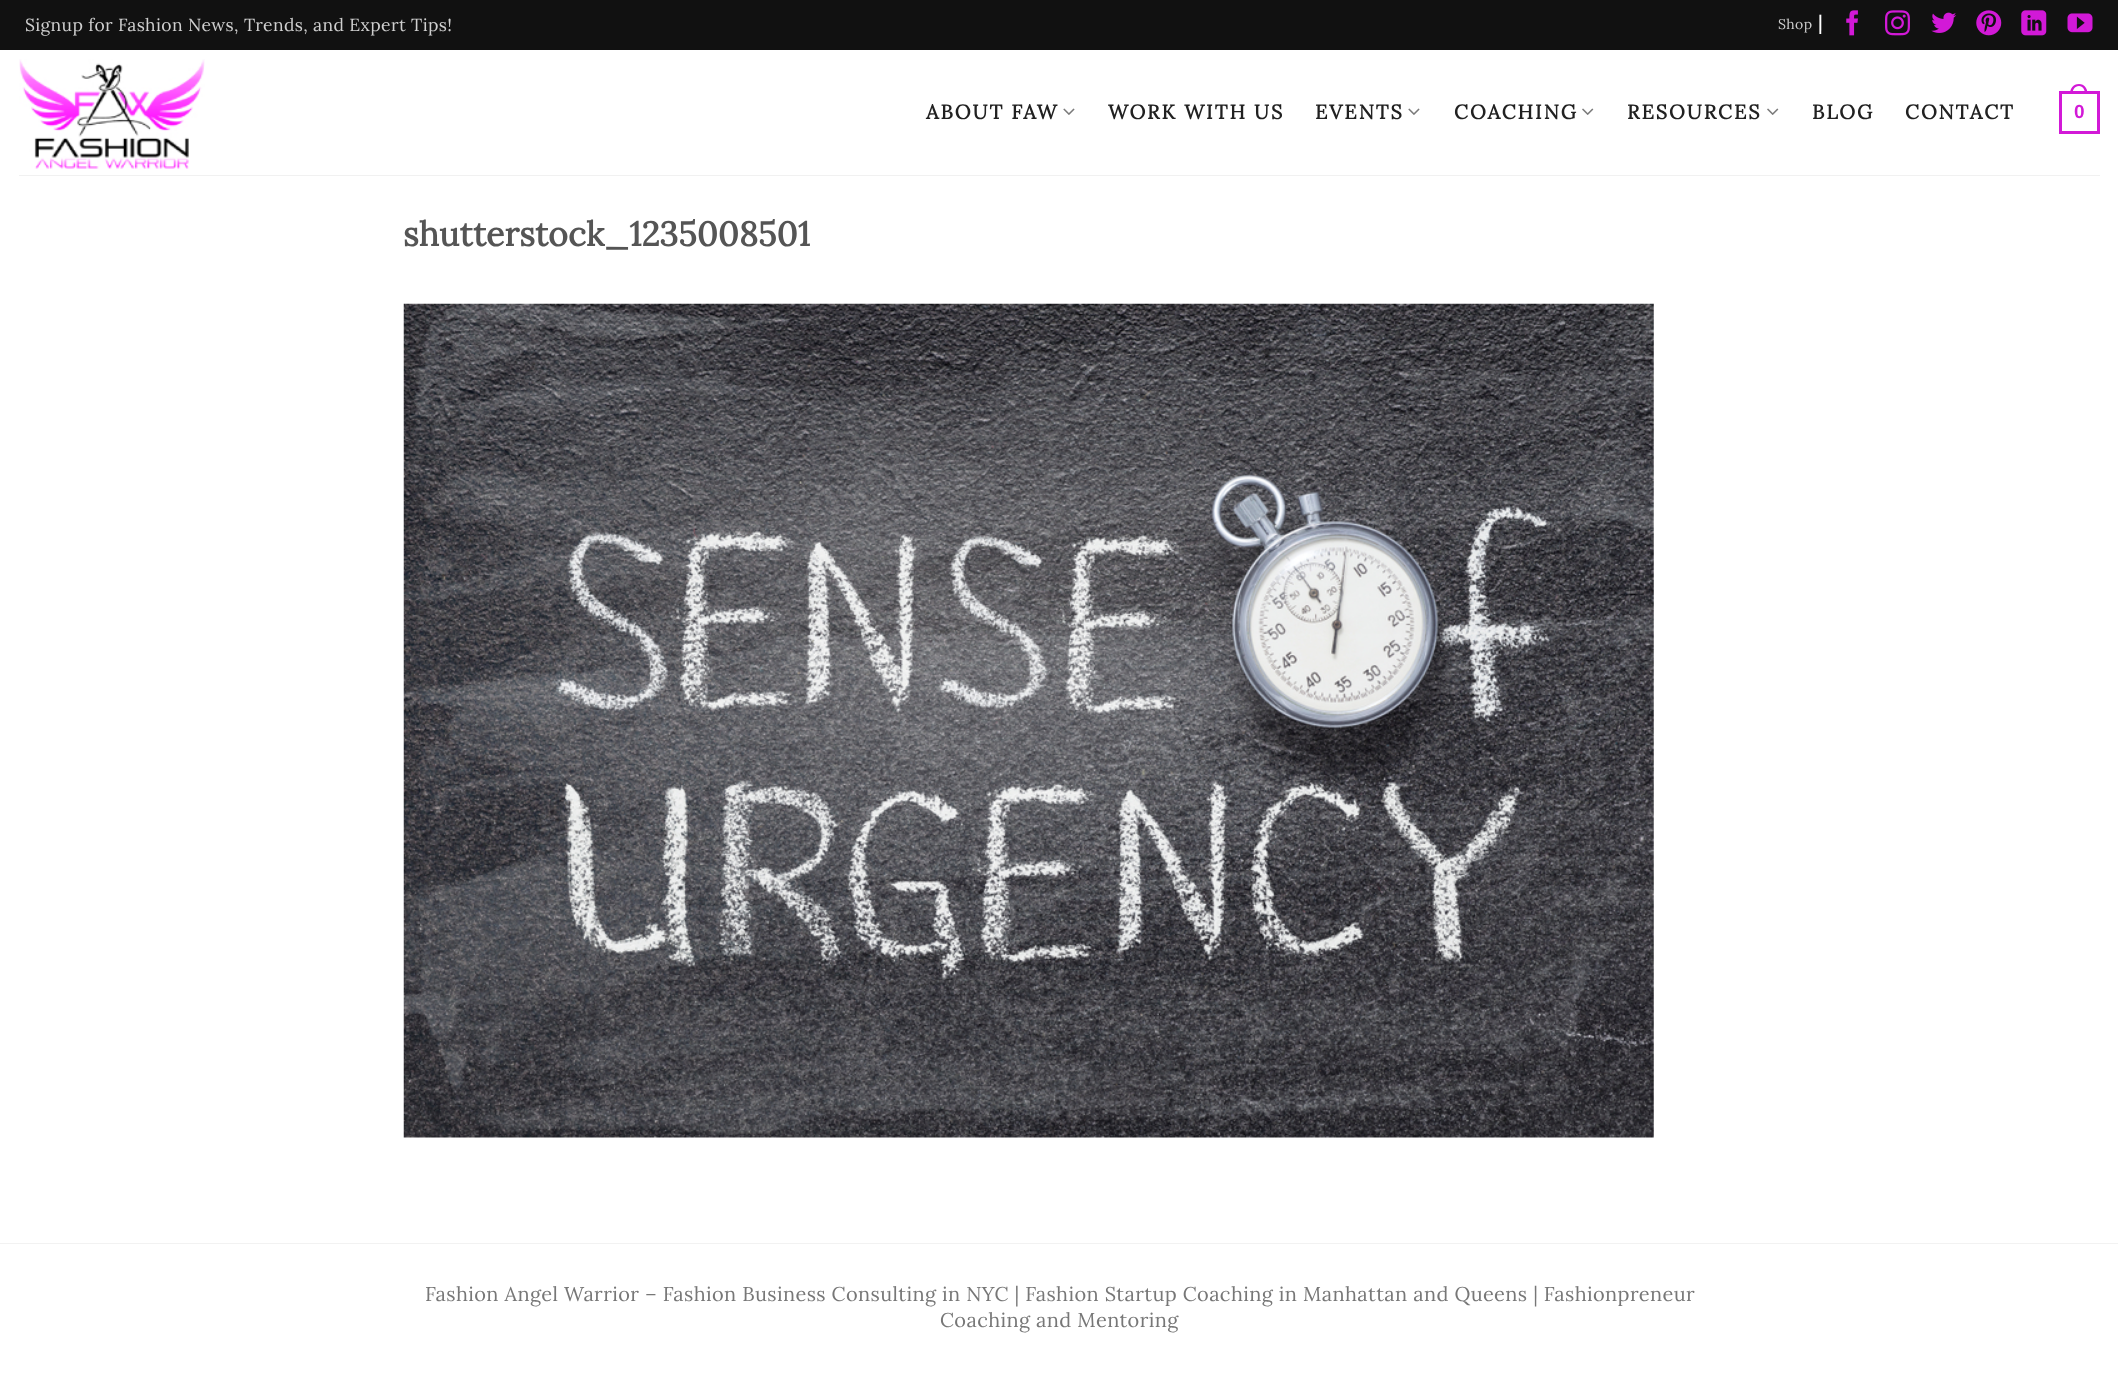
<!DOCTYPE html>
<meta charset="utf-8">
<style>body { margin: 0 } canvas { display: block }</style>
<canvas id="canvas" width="2118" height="1385"></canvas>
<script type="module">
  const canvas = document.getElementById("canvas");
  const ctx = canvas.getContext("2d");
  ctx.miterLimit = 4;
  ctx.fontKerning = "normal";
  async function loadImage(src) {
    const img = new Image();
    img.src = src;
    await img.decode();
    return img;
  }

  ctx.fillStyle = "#ffffff";
  ctx.fillRect(0, 0, 2118, 1385);
  ctx.fillStyle = "#111111";
  ctx.fillRect(0, 0, 2118, 50);
  ctx.letterSpacing = "0.38px";
  ctx.font = "17.5px Lora";
  ctx.fillStyle = "#cfcfcf";
  ctx.fillText("Signup for Fashion News, Trends, and Expert Tips!", 25, 31);
  ctx.font = "14px Lora";
  ctx.fillText("Shop", 1778, 29);
  ctx.font = "bold 18px Lora";
  ctx.fillStyle = "#ffffff";
  ctx.fillText("|", 1818, 29);
  ctx.drawImage(await loadImage("img1.png"), 1846, 10, 12, 26);
  ctx.drawImage(await loadImage("img2.png"), 1885, 10, 25, 26);
  ctx.drawImage(await loadImage("img3.png"), 1931, 12, 26, 21);
  ctx.drawImage(await loadImage("img4.png"), 1976, 10, 26, 26);
  ctx.drawImage(await loadImage("img5.png"), 2021, 10, 26, 26);
  ctx.drawImage(await loadImage("img6.png"), 2067, 13, 26, 20);
  ctx.drawImage(await loadImage("img7.png"), 19, 59, 186, 110);
  ctx.letterSpacing = "1.9px";
  ctx.font = "bold 20px Lora";
  ctx.fillStyle = "#212121";
  ctx.fillText("ABOUT FAW", 926, 119);
  ctx.drawImage(await loadImage("img8.png"), 1063, 108, 12, 7);
  ctx.fillText("WORK WITH US", 1108, 119);
  ctx.fillText("EVENTS", 1315, 119);
  ctx.drawImage(await loadImage("img8.png"), 1408, 108, 12, 7);
  ctx.fillText("COACHING", 1454, 119);
  ctx.drawImage(await loadImage("img9.png"), 1582, 108, 12, 7);
  ctx.fillText("RESOURCES", 1627, 119);
  ctx.drawImage(await loadImage("img9.png"), 1767, 108, 12, 7);
  ctx.fillText("BLOG", 1812, 119);
  ctx.fillText("CONTACT", 1905, 119);
  ctx.strokeStyle = "#d219d7";
  ctx.lineWidth = 3;
  ctx.strokeRect(2060.5, 92.5, 38, 40);
  ctx.fillStyle = "#d219d7";
  ctx.beginPath();
  ctx.moveTo(2079, 84);
  ctx.bezierCurveTo(2084.5, 84, 2087.5, 88.5, 2087.5, 94);
  ctx.lineTo(2070, 94);
  ctx.bezierCurveTo(2070, 88.5, 2073, 84, 2079, 84);
  ctx.closePath();
  ctx.moveTo(2079, 86);
  ctx.bezierCurveTo(2083, 86, 2085, 90, 2085, 94);
  ctx.lineTo(2072.5, 94);
  ctx.bezierCurveTo(2072.5, 90, 2074.5, 86, 2079, 86);
  ctx.closePath();
  ctx.fill("evenodd");
  ctx.letterSpacing = "0.38px";
  ctx.font = "bold 19px Liberation Sans";
  ctx.fillText("0", 2074, 118);
  ctx.fillStyle = "#f1f1f1";
  ctx.fillRect(19, 175, 2081, 1);
  ctx.letterSpacing = "0px";
  ctx.font = "bold 34px Lora";
  ctx.fillStyle = "#555555";
  ctx.fillText("shutterstock_1235008501", 403, 246);
  ctx.drawImage(await loadImage("img10.png"), 403, 303, 1251, 835);
  ctx.fillStyle = "#f2f2f2";
  ctx.fillRect(0, 1243, 2118, 1);
  ctx.letterSpacing = "0.38px";
  ctx.font = "20px Lora";
  ctx.fillStyle = "#777777";
  ctx.fillText("Fashion Angel Warrior – Fashion Business Consulting in NYC | Fashion Startup Coaching in Manhattan and Queens | Fashionpreneur", 425, 1301);
  ctx.fillText("Coaching and Mentoring", 940, 1327);
</script>
